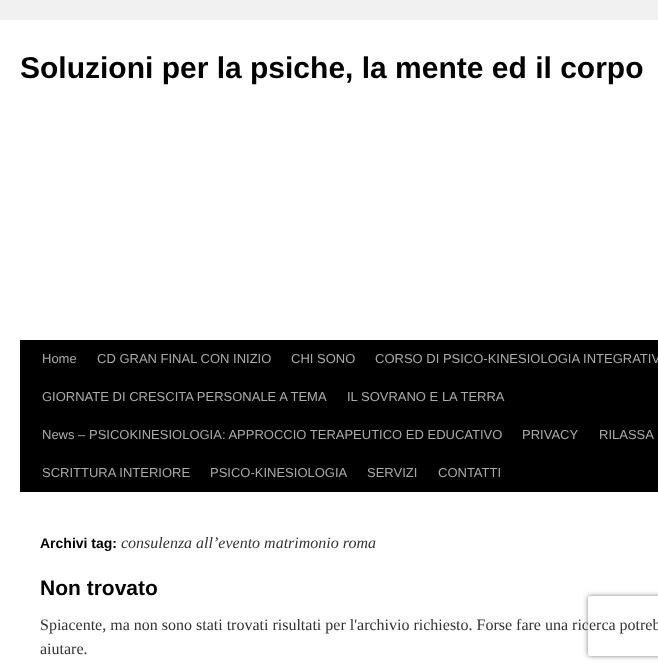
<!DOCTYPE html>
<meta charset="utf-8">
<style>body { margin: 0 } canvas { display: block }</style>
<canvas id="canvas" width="658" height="670"></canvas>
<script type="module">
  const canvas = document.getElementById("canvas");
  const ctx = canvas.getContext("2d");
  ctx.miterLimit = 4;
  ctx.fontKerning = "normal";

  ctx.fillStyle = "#f1f1f1";
  ctx.fillRect(0, 0, 658, 670);
  ctx.fillStyle = "#ffffff";
  ctx.fillRect(0, 20, 658, 650);
  ctx.font = "bold 30px Liberation Sans";
  ctx.fillStyle = "#000000";
  ctx.fillText("Soluzioni per la psiche, la mente ed il corpo", 20, 78);
  ctx.fillRect(20, 340, 638, 152);
  ctx.font = "13px Liberation Sans";
  ctx.fillStyle = "#aaaaaa";
  ctx.fillText("Home", 42, 363);
  ctx.fillText("CD GRAN FINAL CON INIZIO", 97, 363);
  ctx.fillText("CHI SONO", 291, 363);
  ctx.fillText("CORSO DI PSICO-KINESIOLOGIA INTEGRATIV", 375, 363);
  ctx.fillText("GIORNATE DI CRESCITA PERSONALE A TEMA", 42, 401);
  ctx.fillText("IL SOVRANO E LA TERRA", 347, 401);
  ctx.fillText("News – PSICOKINESIOLOGIA: APPROCCIO TERAPEUTICO ED EDUCATIVO", 42, 439);
  ctx.fillText("PRIVACY", 522, 439);
  ctx.fillText("RILASSA", 599, 439);
  ctx.fillText("SCRITTURA INTERIORE", 42, 477);
  ctx.fillText("PSICO-KINESIOLOGIA", 210, 477);
  ctx.fillText("SERVIZI", 367, 477);
  ctx.fillText("CONTATTI", 438, 477);
  ctx.font = "bold 14px Liberation Sans";
  ctx.fillStyle = "#000000";
  ctx.fillText("Archivi tag:", 40, 548);
  ctx.font = "italic 16px Liberation Serif";
  ctx.fillStyle = "#333333";
  ctx.fillText("consulenza all’evento matrimonio roma", 121, 548);
  ctx.font = "bold 21px Liberation Sans";
  ctx.fillStyle = "#000000";
  ctx.fillText("Non trovato", 40, 595);
  ctx.font = "16px Liberation Serif";
  ctx.fillStyle = "#333333";
  ctx.fillText("Spiacente, ma non sono stati trovati risultati per l'archivio richiesto. Forse fare una ricerca potreb", 40, 630);
  ctx.fillText("aiutare.", 40, 654);
  ctx.save();
  ctx.beginPath();
  ctx.moveTo(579, 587);
  ctx.lineTo(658, 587);
  ctx.lineTo(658, 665);
  ctx.lineTo(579, 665);
  ctx.closePath();
  ctx.moveTo(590, 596);
  ctx.lineTo(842, 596);
  ctx.bezierCurveTo(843, 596, 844, 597, 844, 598);
  ctx.lineTo(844, 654);
  ctx.bezierCurveTo(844, 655, 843, 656, 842, 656);
  ctx.lineTo(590, 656);
  ctx.bezierCurveTo(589, 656, 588, 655, 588, 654);
  ctx.lineTo(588, 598);
  ctx.bezierCurveTo(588, 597, 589, 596, 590, 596);
  ctx.closePath();
  ctx.clip("evenodd");
  ctx.fillStyle = "#808080";
  ctx.filter = "blur(2.5px)";
  ctx.beginPath();
  ctx.roundRect(588, 596, 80, 60, 2);
  ctx.fill();
  ctx.filter = "none";
  ctx.restore();
</script>
